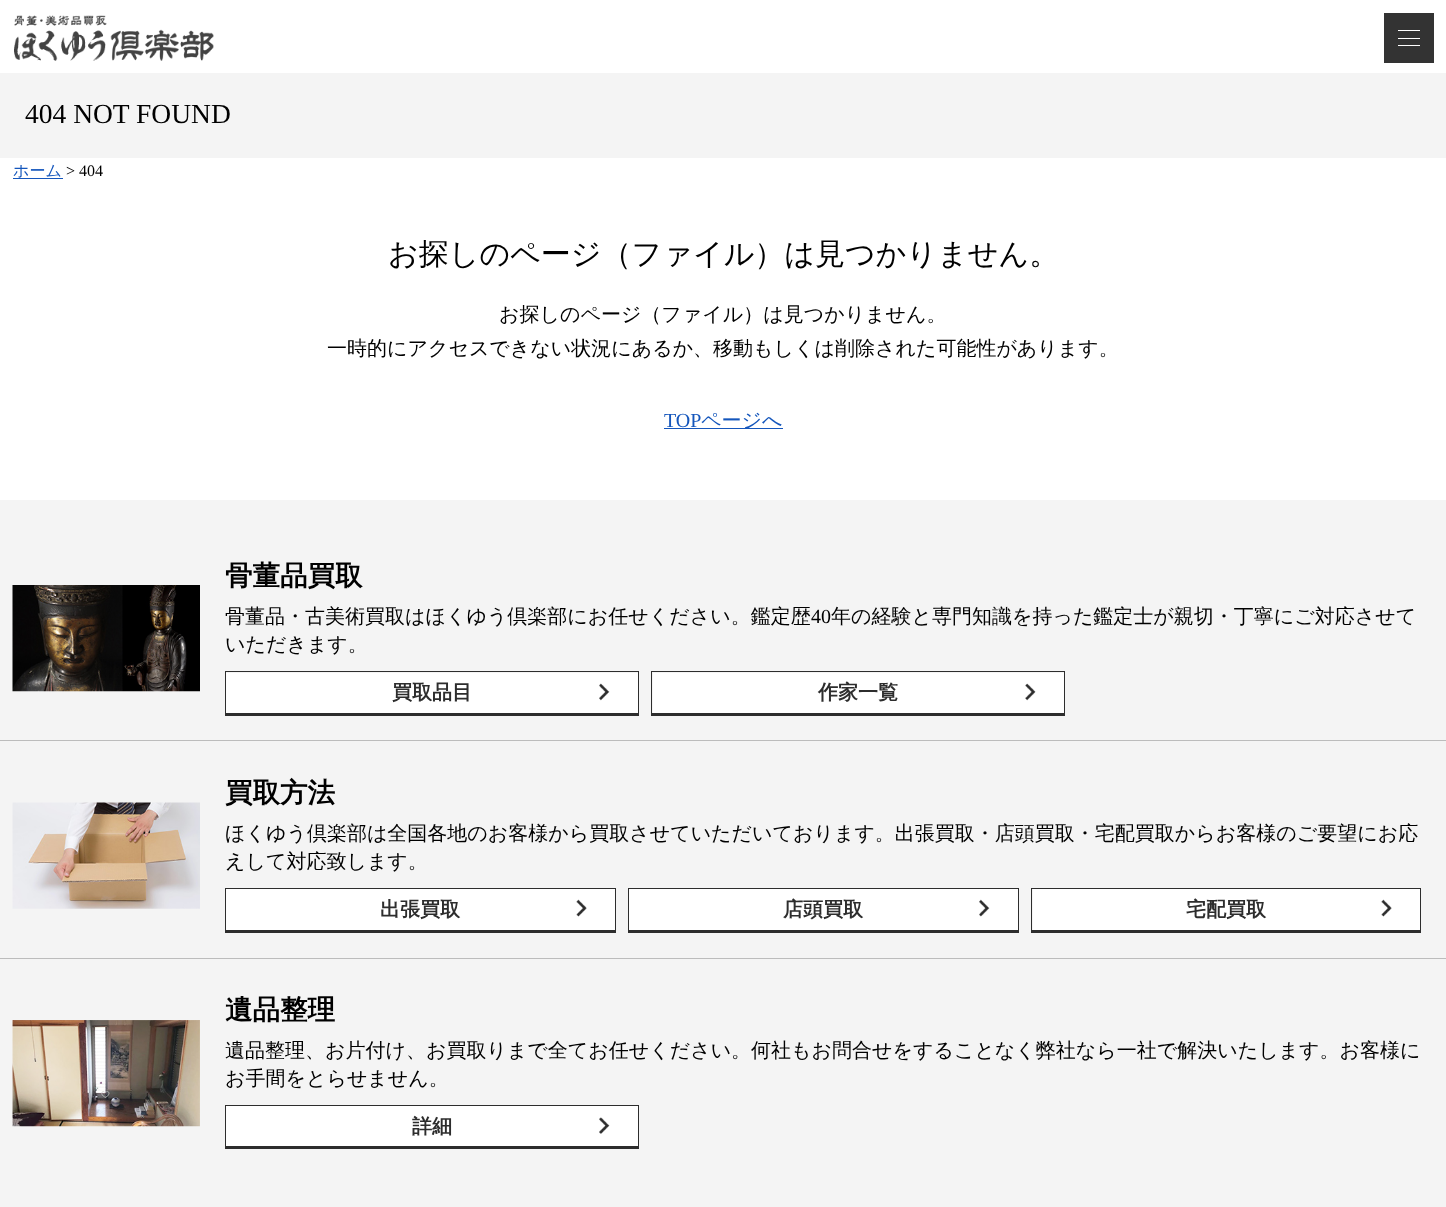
<!DOCTYPE html>
<meta charset="utf-8">
<style>body { margin: 0 } canvas { display: block }</style>
<canvas id="canvas" width="1446" height="1207"></canvas>
<script type="module">
  const canvas = document.getElementById("canvas");
  const ctx = canvas.getContext("2d");
  ctx.miterLimit = 4;
  ctx.fontKerning = "normal";
  async function loadImage(src) {
    const img = new Image();
    img.src = src;
    await img.decode();
    return img;
  }

  ctx.fillStyle = "#ffffff";
  ctx.fillRect(0, 0, 1446, 1207);
  ctx.drawImage(await loadImage("img1.png"), 14, 15, 200, 46);
  ctx.fillStyle = "#333333";
  ctx.fillRect(1384, 13, 50, 50);
  ctx.fillStyle = "#ffffff";
  ctx.fillRect(1398, 30, 22, 1);
  ctx.fillRect(1398, 38, 22, 1);
  ctx.fillRect(1398, 45, 22, 1);
  ctx.fillStyle = "#f4f4f4";
  ctx.fillRect(0, 73, 1446, 85);
  ctx.font = "27.5px Liberation Serif";
  ctx.fillStyle = "#000000";
  ctx.fillText("404 NOT FOUND", 25, 123);
  ctx.font = "500 16px WenQuanYi Zen Hei";
  ctx.fillStyle = "#1456bc";
  ctx.fillText("ホーム", 13, 176);
  ctx.fillRect(13, 178, 50, 1);
  ctx.font = "16px Liberation Serif";
  ctx.fillStyle = "#000000";
  ctx.fillText("> 404", 66, 176);
  ctx.font = "500 30px WenQuanYi Zen Hei";
  ctx.fillText("お探しのページ（ファイル）は見つかりません。", 388, 264);
  ctx.font = "500 20px WenQuanYi Zen Hei";
  ctx.fillText("お探しのページ（ファイル）は見つかりません。", 499, 321);
  ctx.fillText("一時的にアクセスできない状況にあるか、移動もしくは削除された可能性があります。", 327, 355);
  ctx.font = "20px Liberation Serif";
  ctx.fillStyle = "#1456bc";
  ctx.fillText("TOP", 664, 427);
  ctx.fillRect(664, 428, 119, 1);
  ctx.font = "500 20px WenQuanYi Zen Hei";
  ctx.fillText("ページへ", 701, 427);
  ctx.fillStyle = "#f4f4f4";
  ctx.fillRect(0, 500, 1446, 707);
  ctx.fillStyle = "#bcbcbc";
  ctx.fillRect(0, 740, 1446, 1);
  ctx.drawImage(await loadImage("img2.png"), 12, 585, 188, 107);
  ctx.font = "bold 27.5px WenQuanYi Zen Hei";
  ctx.fillStyle = "#000000";
  ctx.fillText("骨董品買取", 225, 585);
  ctx.font = "500 20px WenQuanYi Zen Hei";
  ctx.fillText("骨董品・古美術買取はほくゆう倶楽部にお任せください。鑑定歴", 225, 623);
  ctx.font = "20px Liberation Serif";
  ctx.fillText("40", 811, 623);
  ctx.font = "500 20px WenQuanYi Zen Hei";
  ctx.fillText("年の経験と専門知識を持った鑑定士が親切・丁寧にご対応させて", 831, 623);
  ctx.fillText("いただきます。", 225, 651);
  ctx.fillStyle = "#ffffff";
  ctx.fillRect(226, 673, 412, 40);
  ctx.drawImage(await loadImage("img3.png"), 599, 683, 11, 18);
  ctx.fillStyle = "#2d2d2d";
  ctx.fillRect(225, 671, 414, 1);
  ctx.fillRect(638, 671, 1, 44);
  ctx.fillRect(225, 713, 414, 3);
  ctx.fillRect(225, 671, 1, 44);
  ctx.font = "bold 20px WenQuanYi Zen Hei";
  ctx.fillText("買取品目", 392, 699);
  ctx.fillStyle = "#ffffff";
  ctx.fillRect(653, 673, 411, 40);
  ctx.drawImage(await loadImage("img4.png"), 1025, 683, 11, 18);
  ctx.fillStyle = "#2d2d2d";
  ctx.fillRect(651, 671, 414, 1);
  ctx.fillRect(1064, 671, 1, 44);
  ctx.fillRect(651, 713, 414, 3);
  ctx.fillRect(651, 671, 1, 44);
  ctx.fillText("作家一覧", 818, 699);
  ctx.fillStyle = "#bcbcbc";
  ctx.fillRect(0, 958, 1446, 1);
  ctx.drawImage(await loadImage("img5.png"), 12, 802, 188, 107);
  ctx.font = "bold 27.5px WenQuanYi Zen Hei";
  ctx.fillStyle = "#000000";
  ctx.fillText("買取方法", 225, 802);
  ctx.font = "500 20px WenQuanYi Zen Hei";
  ctx.fillText("ほくゆう倶楽部は全国各地のお客様から買取させていただいております。出張買取・店頭買取・宅配買取からお客様のご要望にお応", 225, 840);
  ctx.fillText("えして対応致します。", 225, 868);
  ctx.fillStyle = "#ffffff";
  ctx.fillRect(226, 889, 389, 41);
  ctx.drawImage(await loadImage("img6.png"), 576, 899, 11, 18);
  ctx.fillStyle = "#2d2d2d";
  ctx.fillRect(225, 888, 391, 1);
  ctx.fillRect(615, 888, 1, 45);
  ctx.fillRect(225, 930, 391, 3);
  ctx.fillRect(225, 888, 1, 45);
  ctx.font = "bold 20px WenQuanYi Zen Hei";
  ctx.fillText("出張買取", 380, 916);
  ctx.fillStyle = "#ffffff";
  ctx.fillRect(629, 889, 389, 41);
  ctx.drawImage(await loadImage("img7.png"), 979, 899, 11, 18);
  ctx.fillStyle = "#2d2d2d";
  ctx.fillRect(628, 888, 391, 1);
  ctx.fillRect(1018, 888, 1, 45);
  ctx.fillRect(628, 930, 391, 3);
  ctx.fillRect(628, 888, 1, 45);
  ctx.fillText("店頭買取", 783, 916);
  ctx.fillStyle = "#ffffff";
  ctx.fillRect(1033, 889, 387, 41);
  ctx.drawImage(await loadImage("img8.png"), 1381, 899, 11, 18);
  ctx.fillStyle = "#2d2d2d";
  ctx.fillRect(1031, 888, 390, 1);
  ctx.fillRect(1420, 888, 1, 45);
  ctx.fillRect(1031, 930, 390, 3);
  ctx.fillRect(1031, 888, 1, 45);
  ctx.fillText("宅配買取", 1186, 916);
  ctx.drawImage(await loadImage("img9.png"), 12, 1020, 188, 107);
  ctx.font = "bold 27.5px WenQuanYi Zen Hei";
  ctx.fillStyle = "#000000";
  ctx.fillText("遺品整理", 225, 1019);
  ctx.font = "500 20px WenQuanYi Zen Hei";
  ctx.fillText("遺品整理、お片付け、お買取りまで全てお任せください。何社もお問合せをすることなく弊社なら一社で解決いたします。お客様に", 225, 1057);
  ctx.fillText("お手間をとらせません。", 225, 1085);
  ctx.fillStyle = "#ffffff";
  ctx.fillRect(226, 1106, 412, 40);
  ctx.drawImage(await loadImage("img10.png"), 599, 1117, 11, 17);
  ctx.fillStyle = "#2d2d2d";
  ctx.fillRect(225, 1105, 414, 1);
  ctx.fillRect(638, 1105, 1, 44);
  ctx.fillRect(225, 1146, 414, 3);
  ctx.fillRect(225, 1105, 1, 44);
  ctx.font = "bold 20px WenQuanYi Zen Hei";
  ctx.fillText("詳細", 412, 1133);
</script>
